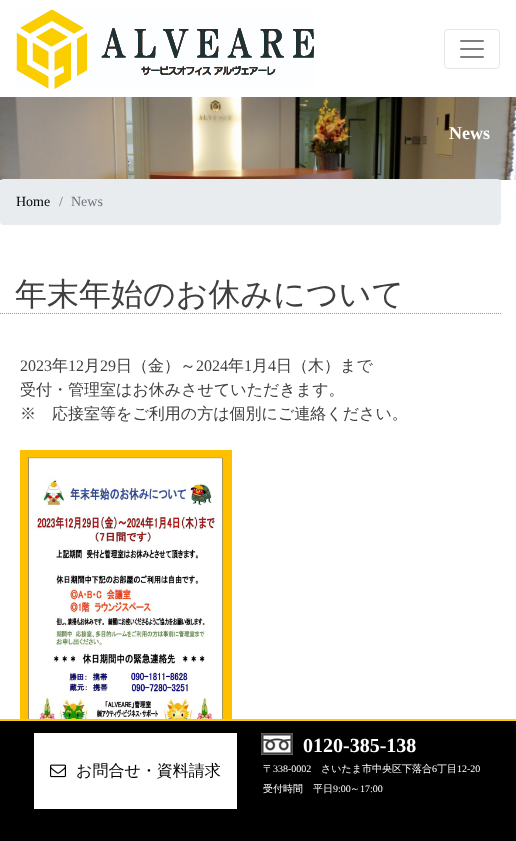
<!DOCTYPE html>
<meta charset="utf-8">
<style>body { margin: 0 } canvas { display: block }</style>
<canvas id="canvas" width="516" height="841"></canvas>
<script type="module">
  const canvas = document.getElementById("canvas");
  const ctx = canvas.getContext("2d");
  ctx.miterLimit = 4;
  ctx.fontKerning = "normal";
  async function loadImage(src) {
    const img = new Image();
    img.src = src;
    await img.decode();
    return img;
  }

  ctx.fillStyle = "#ffffff";
  ctx.fillRect(0, 0, 516, 841);
  ctx.drawImage(await loadImage("img1.png"), 16, 9, 298, 80);
  ctx.beginPath();
  ctx.roundRect(444.5, 29.5, 55, 39, 3.5);
  ctx.strokeStyle = "#e6e6e6";
  ctx.stroke();
  ctx.drawImage(await loadImage("img2.png"), 460, 40, 24, 18);
  ctx.drawImage(await loadImage("img3.png"), 0, 97, 516, 83);
  ctx.font = "bold 18px Liberation Serif";
  ctx.fillText("News", 449, 139);
  ctx.fillStyle = "#e9ecef";
  ctx.beginPath();
  ctx.roundRect(0, 179, 501, 46, 4);
  ctx.fill();
  ctx.font = "14px Liberation Serif";
  ctx.fillStyle = "#000000";
  ctx.fillText("Home", 16, 206);
  ctx.fillStyle = "#6c757d";
  ctx.fillText("/", 59, 206);
  ctx.fillText("News", 71, 206);
  ctx.beginPath();
  ctx.moveTo(0, 313.5);
  ctx.lineTo(501, 313.5);
  ctx.strokeStyle = "#999999";
  ctx.setLineDash([1, 1]);
  ctx.stroke();
  ctx.font = "500 32px WenQuanYi Zen Hei";
  ctx.fillStyle = "#404040";
  ctx.fillText("年末年始のお休みについて", 15, 305);
  ctx.font = "16px Liberation Serif";
  ctx.fillText("2023", 20, 371);
  ctx.font = "500 16px WenQuanYi Zen Hei";
  ctx.fillText("年", 52, 371);
  ctx.font = "16px Liberation Serif";
  ctx.fillText("12", 68, 371);
  ctx.font = "500 16px WenQuanYi Zen Hei";
  ctx.fillText("月", 84, 371);
  ctx.font = "16px Liberation Serif";
  ctx.fillText("29", 100, 371);
  ctx.font = "500 16px WenQuanYi Zen Hei";
  ctx.fillText("日（金）～", 116, 371);
  ctx.font = "16px Liberation Serif";
  ctx.fillText("2024", 196, 371);
  ctx.font = "500 16px WenQuanYi Zen Hei";
  ctx.fillText("年", 228, 371);
  ctx.font = "16px Liberation Serif";
  ctx.fillText("1", 244, 371);
  ctx.font = "500 16px WenQuanYi Zen Hei";
  ctx.fillText("月", 252, 371);
  ctx.font = "16px Liberation Serif";
  ctx.fillText("4", 268, 371);
  ctx.font = "500 16px WenQuanYi Zen Hei";
  ctx.fillText("日（木）まで", 276, 371);
  ctx.fillText("受付・管理室はお休みさせていただきます。", 20, 395);
  ctx.fillText("※　応接室等をご利用の方は個別にご連絡ください。", 20, 419);
  ctx.drawImage(await loadImage("img4.png"), 20, 450, 212, 269);
  ctx.fillStyle = "#000000";
  ctx.fillRect(0, 721, 516, 120);
  ctx.fillStyle = "#ffcc00";
  ctx.fillRect(0, 719, 516, 2);
  ctx.fillStyle = "#ffffff";
  ctx.fillRect(34, 733, 203, 76);
  ctx.drawImage(await loadImage("img5.png"), 50, 764, 16, 14);
  ctx.fillStyle = "#000000";
  ctx.fillText("お問合せ・資料請求", 76, 776);
  ctx.drawImage(await loadImage("img6.png"), 261, 733, 32, 22);
  ctx.font = "bold 20px Liberation Serif";
  ctx.fillStyle = "#ffffff";
  ctx.fillText("0120-385-138", 303, 752);
  ctx.font = "500 10px WenQuanYi Zen Hei";
  ctx.fillText("〒", 263, 772);
  ctx.font = "10px Liberation Serif";
  ctx.fillText("338-0002", 273, 772);
  ctx.font = "500 10px WenQuanYi Zen Hei";
  ctx.fillText("さいたま市中央区下落合", 321, 772);
  ctx.font = "10px Liberation Serif";
  ctx.fillText("6", 432, 772);
  ctx.font = "500 10px WenQuanYi Zen Hei";
  ctx.fillText("丁目", 437, 772);
  ctx.font = "10px Liberation Serif";
  ctx.fillText("12-20", 457, 772);
  ctx.font = "500 10px WenQuanYi Zen Hei";
  ctx.fillText("受付時間　平日", 263, 792);
  ctx.font = "10px Liberation Serif";
  ctx.fillText("9:00", 333, 792);
  ctx.font = "500 10px WenQuanYi Zen Hei";
  ctx.fillText("～", 350, 792);
  ctx.font = "10px Liberation Serif";
  ctx.fillText("17:00", 360, 792);
</script>
